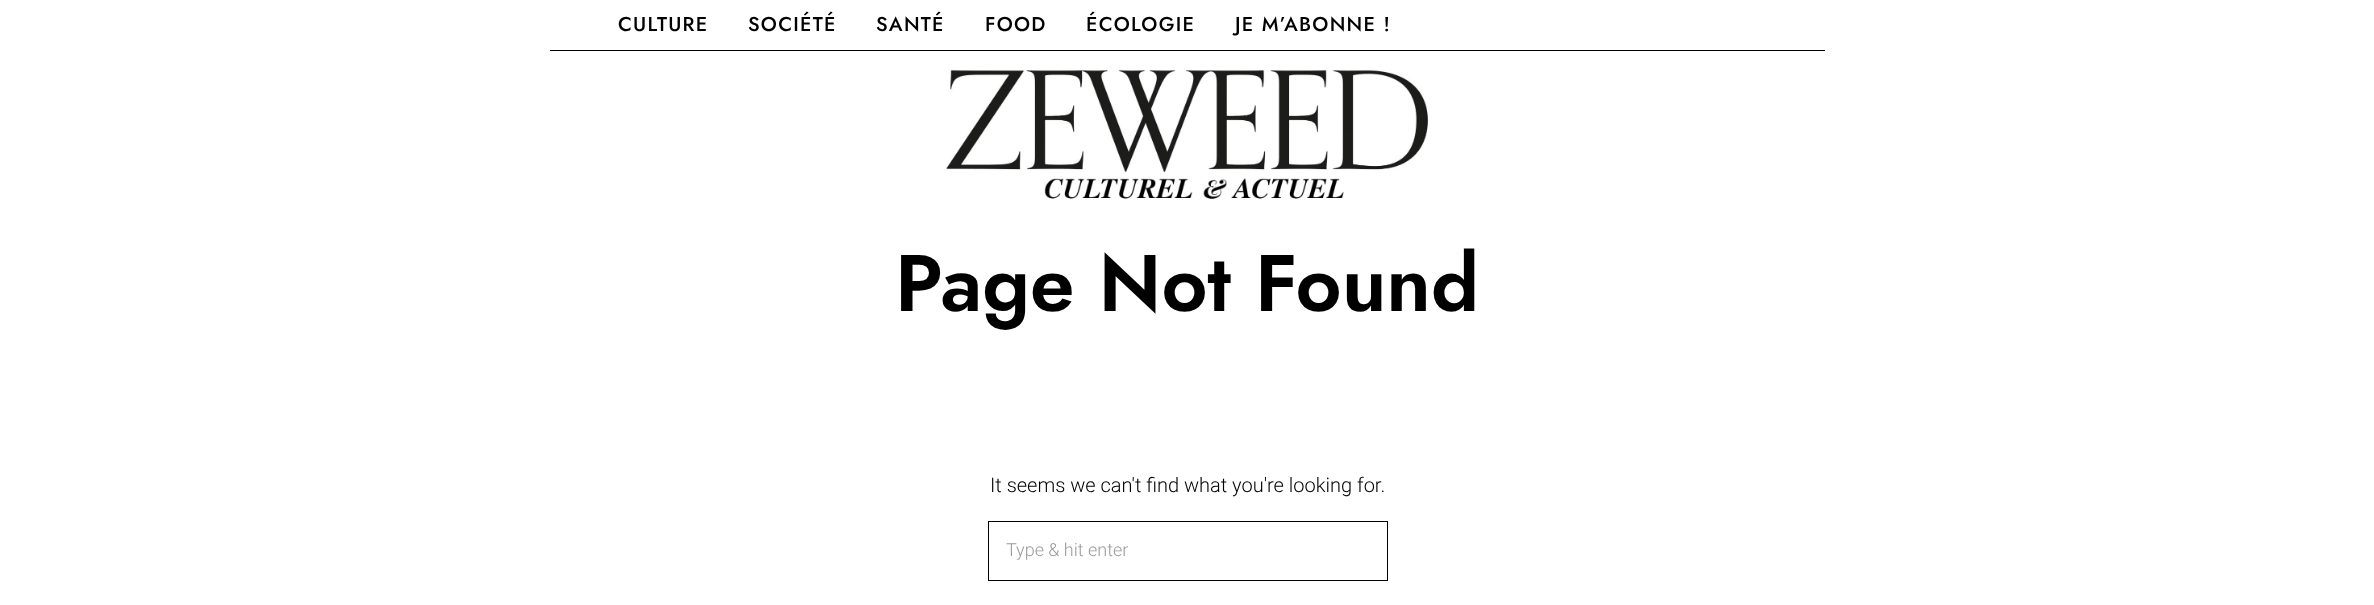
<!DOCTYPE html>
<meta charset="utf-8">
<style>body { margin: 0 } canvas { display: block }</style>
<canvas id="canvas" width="2374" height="605"></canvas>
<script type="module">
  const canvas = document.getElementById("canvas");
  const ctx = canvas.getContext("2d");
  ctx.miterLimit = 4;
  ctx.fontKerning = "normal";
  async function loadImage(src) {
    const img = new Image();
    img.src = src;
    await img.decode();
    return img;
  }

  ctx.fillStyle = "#ffffff";
  ctx.fillRect(0, 0, 2374, 605);
  ctx.fillStyle = "#000000";
  ctx.fillRect(550, 50, 1275, 1);
  ctx.letterSpacing = "1.25px";
  ctx.font = "500 20px Jost";
  ctx.fillText("CULTURE", 618, 31);
  ctx.fillText("SOCIÉTÉ", 748, 31);
  ctx.fillText("SANTÉ", 876, 31);
  ctx.fillText("FOOD", 985, 31);
  ctx.fillText("ÉCOLOGIE", 1086, 31);
  ctx.fillText("JE M’ABONNE !", 1235, 31);
  ctx.drawImage(await loadImage("img1.png"), 946, 69, 482, 131);
  ctx.letterSpacing = "0px";
  ctx.font = "600 80px Jost";
  ctx.fillText("Page Not Found", 895, 311);
  ctx.font = "300 20px Roboto";
  ctx.fillText("It seems we can't find what you're looking for.", 990, 492);
  ctx.strokeStyle = "#000000";
  ctx.strokeRect(988.5, 521.5, 399, 59);
  ctx.font = "300 18px Roboto";
  ctx.fillStyle = "#999999";
  ctx.fillText("Type & hit enter", 1006, 556);
</script>
